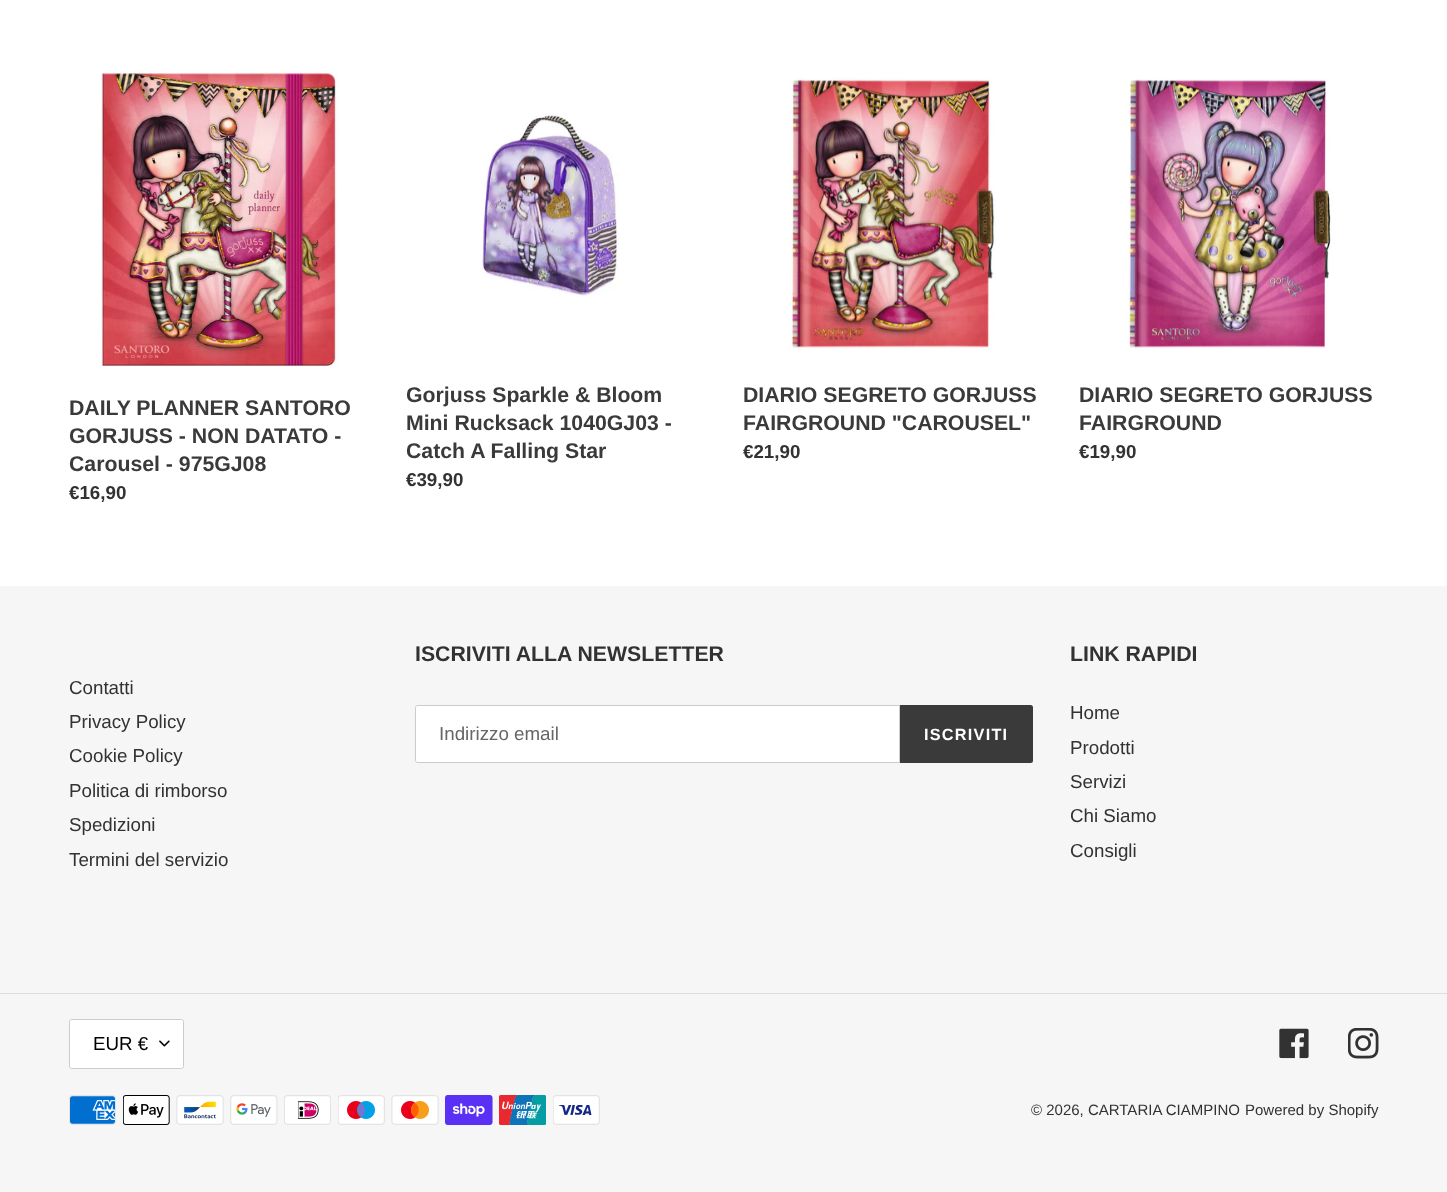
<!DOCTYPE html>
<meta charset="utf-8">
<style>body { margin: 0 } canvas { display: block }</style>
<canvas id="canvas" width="1447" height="1192"></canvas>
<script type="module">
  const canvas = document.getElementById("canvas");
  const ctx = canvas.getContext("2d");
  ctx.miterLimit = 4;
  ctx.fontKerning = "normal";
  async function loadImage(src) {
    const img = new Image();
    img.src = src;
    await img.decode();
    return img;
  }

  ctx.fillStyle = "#ffffff";
  ctx.fillRect(0, 0, 1447, 1192);
  ctx.drawImage(await loadImage("img1.png"), 101, 70, 238, 297);
  ctx.font = "bold 21.25px Liberation Sans";
  ctx.fillStyle = "#3a3a3a";
  ctx.fillText("DAILY PLANNER SANTORO", 69, 415);
  ctx.fillText("GORJUSS - NON DATATO -", 69, 443);
  ctx.fillText("Carousel - 975GJ08", 69, 471);
  ctx.font = "bold 18.75px Liberation Sans";
  ctx.fillStyle = "#333232";
  ctx.fillText("€16,90", 69, 499);
  ctx.drawImage(await loadImage("img2.png"), 479, 113, 140, 184);
  ctx.font = "bold 21.25px Liberation Sans";
  ctx.fillStyle = "#3a3a3a";
  ctx.fillText("Gorjuss Sparkle & Bloom", 406, 402);
  ctx.fillText("Mini Rucksack 1040GJ03 -", 406, 430);
  ctx.fillText("Catch A Falling Star", 406, 458);
  ctx.font = "bold 18.75px Liberation Sans";
  ctx.fillStyle = "#333232";
  ctx.fillText("€39,90", 406, 486);
  ctx.drawImage(await loadImage("img3.png"), 789, 77, 207, 273);
  ctx.font = "bold 21.25px Liberation Sans";
  ctx.fillStyle = "#3a3a3a";
  ctx.fillText("DIARIO SEGRETO GORJUSS", 743, 402);
  ctx.fillText("FAIRGROUND \"CAROUSEL\"", 743, 430);
  ctx.font = "bold 18.75px Liberation Sans";
  ctx.fillStyle = "#333232";
  ctx.fillText("€21,90", 743, 458);
  ctx.drawImage(await loadImage("img4.png"), 1126, 78, 206, 271);
  ctx.font = "bold 21.25px Liberation Sans";
  ctx.fillStyle = "#3a3a3a";
  ctx.fillText("DIARIO SEGRETO GORJUSS", 1079, 402);
  ctx.fillText("FAIRGROUND", 1079, 430);
  ctx.font = "bold 18.75px Liberation Sans";
  ctx.fillStyle = "#333232";
  ctx.fillText("€19,90", 1079, 458);
  ctx.fillStyle = "#f6f6f6";
  ctx.fillRect(0, 586, 1447, 606);
  ctx.font = "18.75px Liberation Sans";
  ctx.fillStyle = "#333232";
  ctx.fillText("Contatti", 69, 694);
  ctx.fillText("Privacy Policy", 69, 728);
  ctx.fillText("Cookie Policy", 69, 762);
  ctx.fillText("Politica di rimborso", 69, 797);
  ctx.fillText("Spedizioni", 69, 831);
  ctx.fillText("Termini del servizio", 69, 866);
  ctx.font = "bold 21.25px Liberation Sans";
  ctx.fillText("ISCRIVITI ALLA NEWSLETTER", 415, 661);
  ctx.fillStyle = "#ffffff";
  ctx.beginPath();
  ctx.roundRect(415.5, 705.5, 484, 57, [2, 0, 0, 2]);
  ctx.fill();
  ctx.strokeStyle = "#cccccc";
  ctx.stroke();
  ctx.font = "18.75px Liberation Sans";
  ctx.fillStyle = "#666666";
  ctx.fillText("Indirizzo email", 439, 740);
  ctx.fillStyle = "#3a3a3a";
  ctx.beginPath();
  ctx.roundRect(900, 705, 133, 58, [0, 2.5, 2.5, 0]);
  ctx.fill();
  ctx.letterSpacing = "1.25px";
  ctx.font = "bold 16.25px Liberation Sans";
  ctx.fillStyle = "#ffffff";
  ctx.fillText("ISCRIVITI", 924, 740);
  ctx.letterSpacing = "0px";
  ctx.font = "bold 21.25px Liberation Sans";
  ctx.fillStyle = "#333232";
  ctx.fillText("LINK RAPIDI", 1070, 661);
  ctx.font = "18.75px Liberation Sans";
  ctx.fillText("Home", 1070, 719);
  ctx.fillText("Prodotti", 1070, 754);
  ctx.fillText("Servizi", 1070, 788);
  ctx.fillText("Chi Siamo", 1070, 822);
  ctx.fillText("Consigli", 1070, 857);
  ctx.fillStyle = "#dddddd";
  ctx.fillRect(0, 993, 1447, 1);
  ctx.fillStyle = "#ffffff";
  ctx.beginPath();
  ctx.roundRect(69, 1019, 115, 50, 2.5);
  ctx.fill();
  ctx.drawImage(await loadImage("img5.png"), 159, 1040, 11, 7);
  ctx.beginPath();
  ctx.roundRect(69.5, 1019.5, 114, 49, 2);
  ctx.stroke();
  ctx.fillStyle = "#000000";
  ctx.fillText("EUR €", 93, 1050);
  ctx.drawImage(await loadImage("img6.png"), 1279, 1028, 30, 31);
  ctx.drawImage(await loadImage("img7.png"), 1348, 1028, 31, 31);
  ctx.drawImage(await loadImage("img8.png"), 69, 1095, 47, 30);
  ctx.drawImage(await loadImage("img9.png"), 123, 1095, 47, 30);
  ctx.drawImage(await loadImage("img10.png"), 176, 1095, 48, 30);
  ctx.drawImage(await loadImage("img11.png"), 230, 1095, 48, 30);
  ctx.drawImage(await loadImage("img12.png"), 284, 1095, 47, 30);
  ctx.drawImage(await loadImage("img13.png"), 338, 1095, 47, 30);
  ctx.drawImage(await loadImage("img14.png"), 391, 1095, 48, 30);
  ctx.drawImage(await loadImage("img15.png"), 445, 1095, 48, 30);
  ctx.drawImage(await loadImage("img16.png"), 499, 1095, 47, 30);
  ctx.drawImage(await loadImage("img17.png"), 553, 1095, 47, 30);
  ctx.font = "15px Liberation Sans";
  ctx.fillStyle = "#333232";
  ctx.fillText("© 2026, CARTARIA CIAMPINO", 1031, 1115);
  ctx.fillText("Powered by Shopify", 1245, 1115);
</script>
